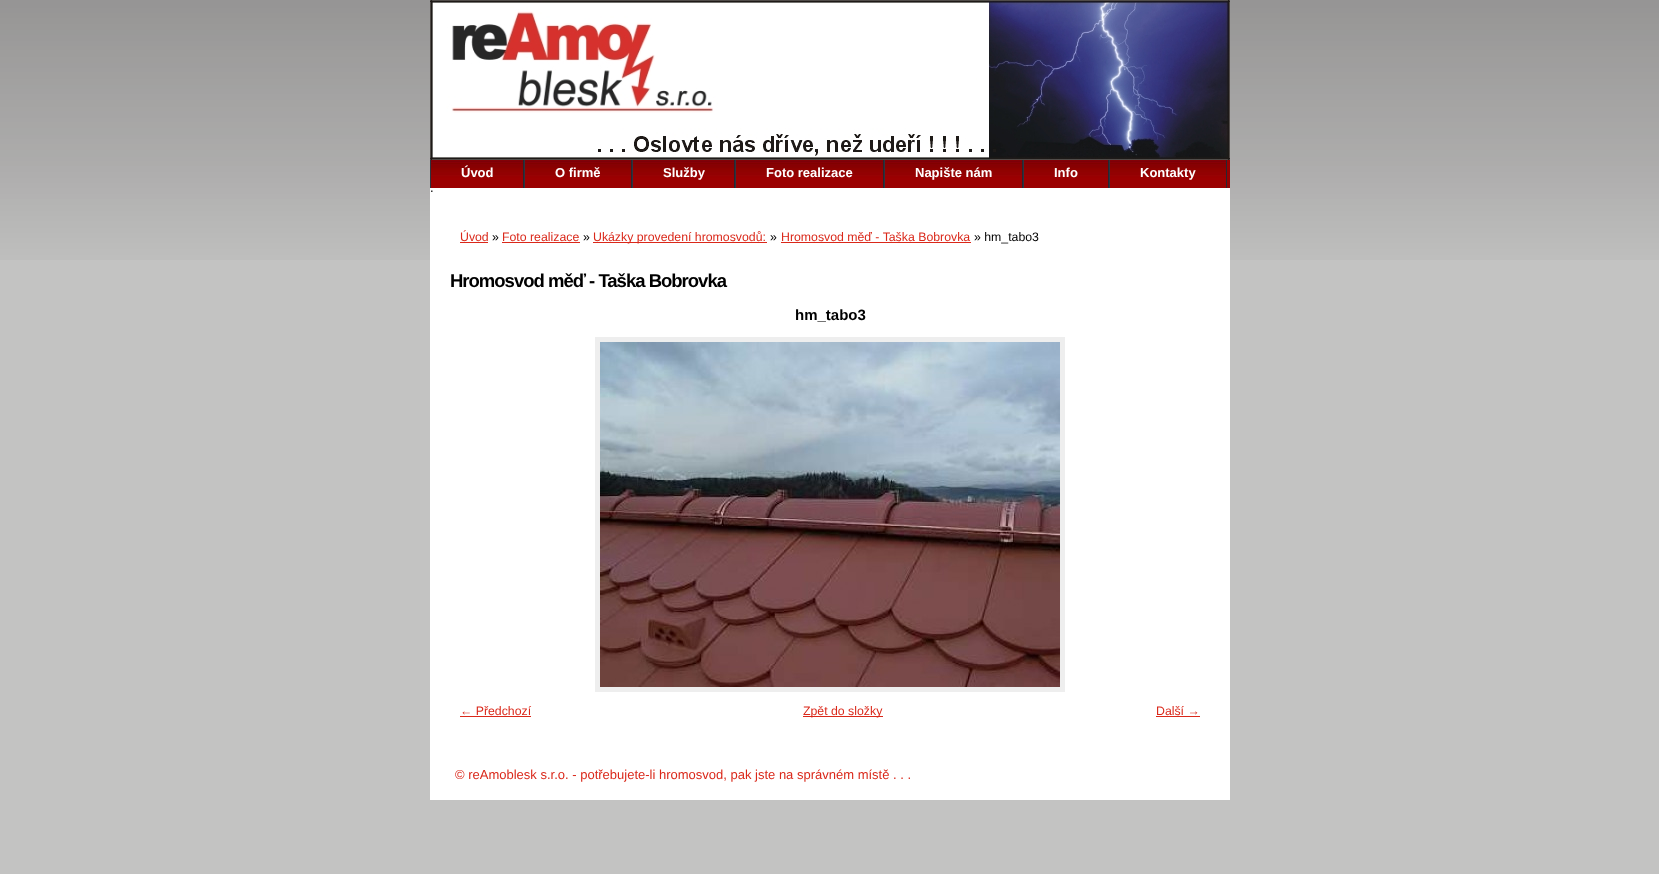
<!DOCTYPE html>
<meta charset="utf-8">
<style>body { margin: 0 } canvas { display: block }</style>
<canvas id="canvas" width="1659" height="874"></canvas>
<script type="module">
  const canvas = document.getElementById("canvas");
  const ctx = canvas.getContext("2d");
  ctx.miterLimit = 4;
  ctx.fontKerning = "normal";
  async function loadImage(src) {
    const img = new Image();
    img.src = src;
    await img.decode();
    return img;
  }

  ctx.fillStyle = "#c3c3c2";
  ctx.fillRect(0, 0, 1659, 874);
  ctx.drawImage(await loadImage("img1.png"), 0, 0, 1659, 260);
  ctx.fillStyle = "#ffffff";
  ctx.fillRect(430, 188, 800, 612);
  ctx.fillStyle = "#272731";
  ctx.fillRect(523, 158, 1, 30);
  ctx.fillStyle = "#2f333e";
  ctx.fillRect(430, 158, 1, 30);
  ctx.fillStyle = "#272731";
  ctx.fillRect(631, 158, 1, 30);
  ctx.fillStyle = "#2f333e";
  ctx.fillRect(524, 158, 1, 30);
  ctx.fillStyle = "#272731";
  ctx.fillRect(734, 158, 1, 30);
  ctx.fillStyle = "#2f333e";
  ctx.fillRect(632, 158, 1, 30);
  ctx.fillStyle = "#272731";
  ctx.fillRect(883, 158, 1, 30);
  ctx.fillStyle = "#2f333e";
  ctx.fillRect(735, 158, 1, 30);
  ctx.fillStyle = "#272731";
  ctx.fillRect(1022, 158, 1, 30);
  ctx.fillStyle = "#2f333e";
  ctx.fillRect(884, 158, 1, 30);
  ctx.fillStyle = "#272731";
  ctx.fillRect(1108, 158, 1, 30);
  ctx.fillStyle = "#2f333e";
  ctx.fillRect(1023, 158, 1, 30);
  ctx.fillStyle = "#272731";
  ctx.fillRect(1226, 158, 1, 30);
  ctx.fillStyle = "#2f333e";
  ctx.fillRect(1109, 158, 1, 30);
  ctx.drawImage(await loadImage("img2.png"), 430, 0, 800, 160);
  ctx.fillStyle = "#930102";
  ctx.fillRect(1227, 160, 3, 28);
  ctx.drawImage(await loadImage("img3.png"), 431, 160, 92, 28);
  ctx.font = "bold 13px Liberation Sans";
  ctx.fillStyle = "#ffffff";
  ctx.fillText("Úvod", 461, 177);
  ctx.drawImage(await loadImage("img4.png"), 525, 160, 106, 28);
  ctx.fillText("O firmě", 555, 177);
  ctx.drawImage(await loadImage("img5.png"), 633, 160, 101, 28);
  ctx.fillText("Služby", 663, 177);
  ctx.drawImage(await loadImage("img6.png"), 736, 160, 147, 28);
  ctx.fillText("Foto realizace", 766, 177);
  ctx.drawImage(await loadImage("img7.png"), 885, 160, 137, 28);
  ctx.fillText("Napište nám", 915, 177);
  ctx.drawImage(await loadImage("img8.png"), 1024, 160, 84, 28);
  ctx.fillText("Info", 1054, 177);
  ctx.drawImage(await loadImage("img9.png"), 1110, 160, 116, 28);
  ctx.fillText("Kontakty", 1140, 177);
  ctx.font = "13px Liberation Sans";
  ctx.fillStyle = "#000000";
  ctx.fillText(".", 430, 192);
  ctx.font = "12.3px Liberation Sans";
  ctx.fillStyle = "#da281a";
  ctx.fillText("Úvod", 460, 241);
  ctx.fillRect(460, 242, 28, 1);
  ctx.fillStyle = "#000000";
  ctx.fillText("»", 492, 241);
  ctx.fillStyle = "#da281a";
  ctx.fillText("Foto realizace", 502, 241);
  ctx.fillRect(502, 242, 78, 1);
  ctx.fillStyle = "#000000";
  ctx.fillText("»", 583, 241);
  ctx.fillStyle = "#da281a";
  ctx.fillRect(593, 242, 174, 1);
  ctx.fillText("Ukázky provedení hromosvodů:", 593, 241);
  ctx.fillStyle = "#000000";
  ctx.fillText("»", 770, 241);
  ctx.fillStyle = "#da281a";
  ctx.fillText("Hromosvod měď - Taška Bobrovka", 781, 241);
  ctx.fillRect(781, 242, 190, 1);
  ctx.fillStyle = "#000000";
  ctx.fillText("» hm_tabo3", 974, 241);
  ctx.letterSpacing = "-1px";
  ctx.font = "bold 18.5px Liberation Sans";
  ctx.fillText("Hromosvod měď - Taška Bobrovka", 450, 287);
  ctx.letterSpacing = "0px";
  ctx.font = "bold 15px Liberation Sans";
  ctx.fillText("hm_tabo3", 795, 320);
  ctx.strokeStyle = "#eeeeee";
  ctx.lineWidth = 5;
  ctx.strokeRect(597.5, 339.5, 465, 350);
  ctx.drawImage(await loadImage("img10.png"), 600, 342, 460, 345);
  ctx.font = "12.3px Liberation Sans";
  ctx.fillStyle = "#da281a";
  ctx.fillText("← Předchozí", 460, 715);
  ctx.fillRect(460, 716, 71, 1);
  ctx.fillRect(803, 716, 80, 1);
  ctx.fillText("Zpět do složky", 803, 715);
  ctx.fillText("Další →", 1156, 715);
  ctx.fillRect(1156, 716, 44, 1);
  ctx.font = "13px Liberation Sans";
  ctx.fillText("© reAmoblesk s.r.o. - potřebujete-li hromosvod, pak jste na správném místě . . .", 455, 779);
</script>
